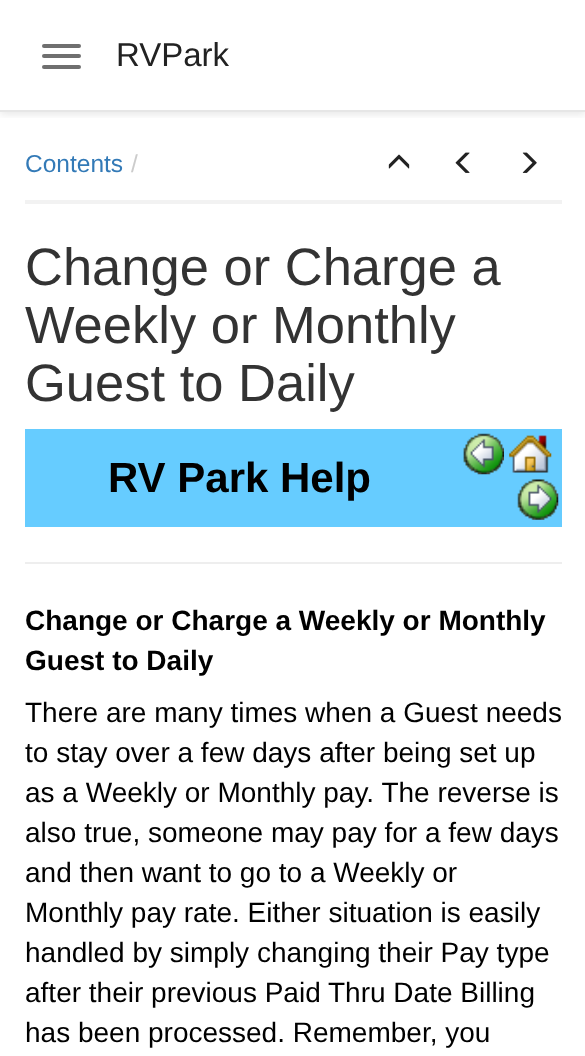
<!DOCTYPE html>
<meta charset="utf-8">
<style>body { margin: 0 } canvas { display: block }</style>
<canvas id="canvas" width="585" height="1056"></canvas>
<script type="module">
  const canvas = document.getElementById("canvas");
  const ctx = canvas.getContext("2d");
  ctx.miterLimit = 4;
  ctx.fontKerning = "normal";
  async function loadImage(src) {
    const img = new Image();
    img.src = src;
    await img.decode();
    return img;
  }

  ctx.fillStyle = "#ffffff";
  ctx.fillRect(0, 0, 585, 1056);
  ctx.save();
  ctx.beginPath();
  ctx.rect(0, 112, 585, 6);
  ctx.clip();
  ctx.fillStyle = "rgba(0, 0, 0, 0.1)";
  ctx.filter = "blur(4.5px)";
  ctx.beginPath();
  ctx.rect(0, 2, 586, 112);
  ctx.fill();
  ctx.filter = "none";
  ctx.restore();
  ctx.fillStyle = "#e6e6e6";
  ctx.fillRect(0, 110, 585, 2);
  ctx.fillStyle = "#6f6f6f";
  ctx.beginPath();
  ctx.roundRect(42, 44, 39, 4, 2);
  ctx.fill();
  ctx.beginPath();
  ctx.roundRect(42, 54, 39, 4, 2);
  ctx.fill();
  ctx.beginPath();
  ctx.roundRect(42, 65, 39, 4, 2);
  ctx.fill();
  ctx.font = "33px Liberation Sans";
  ctx.fillStyle = "#222222";
  ctx.fillText("RVPark", 116, 66);
  ctx.fillStyle = "#f2f2f2";
  ctx.fillRect(25, 200, 537, 4);
  ctx.font = "24.5px Liberation Sans";
  ctx.fillStyle = "#337ab7";
  ctx.fillText("Contents", 25, 172);
  ctx.fillStyle = "#cccccc";
  ctx.fillText("/", 131, 172);
  ctx.drawImage(await loadImage("img1.png"), 388, 154, 22, 15);
  ctx.drawImage(await loadImage("img2.png"), 455, 152, 15, 21);
  ctx.drawImage(await loadImage("img3.png"), 522, 152, 15, 21);
  ctx.font = "52.5px Liberation Sans";
  ctx.fillStyle = "#333333";
  ctx.fillText("Change or Charge a", 25, 285);
  ctx.fillText("Weekly or Monthly", 25, 343);
  ctx.fillText("Guest to Daily", 25, 401);
  ctx.fillStyle = "#66ccff";
  ctx.fillRect(25, 429, 537, 98);
  ctx.font = "bold 42px Liberation Sans";
  ctx.fillStyle = "#000000";
  ctx.fillText("RV Park Help", 108, 492);
  ctx.drawImage(await loadImage("img4.png"), 463, 433, 41, 42);
  ctx.drawImage(await loadImage("img5.png"), 509, 435, 43, 38);
  ctx.drawImage(await loadImage("img6.png"), 517, 479, 42, 41);
  ctx.fillStyle = "#eeeeee";
  ctx.fillRect(25, 562, 537, 2);
  ctx.font = "bold 28px Liberation Sans";
  ctx.fillStyle = "#000000";
  ctx.fillText("Change or Charge a Weekly or Monthly", 25, 630);
  ctx.fillText("Guest to Daily", 25, 670);
  ctx.font = "28px Liberation Sans";
  ctx.fillText("There are many times when a Guest needs", 25, 722);
  ctx.fillText("to stay over a few days after being set up", 25, 762);
  ctx.fillText("as a Weekly or Monthly pay. The reverse is", 25, 802);
  ctx.fillText("also true, someone may pay for a few days", 25, 842);
  ctx.fillText("and then want to go to a Weekly or", 25, 882);
  ctx.fillText("Monthly pay rate. Either situation is easily", 25, 922);
  ctx.fillText("handled by simply changing their Pay type", 25, 962);
  ctx.fillText("after their previous Paid Thru Date Billing", 25, 1002);
  ctx.fillText("has been processed. Remember, you", 25, 1042);
</script>
